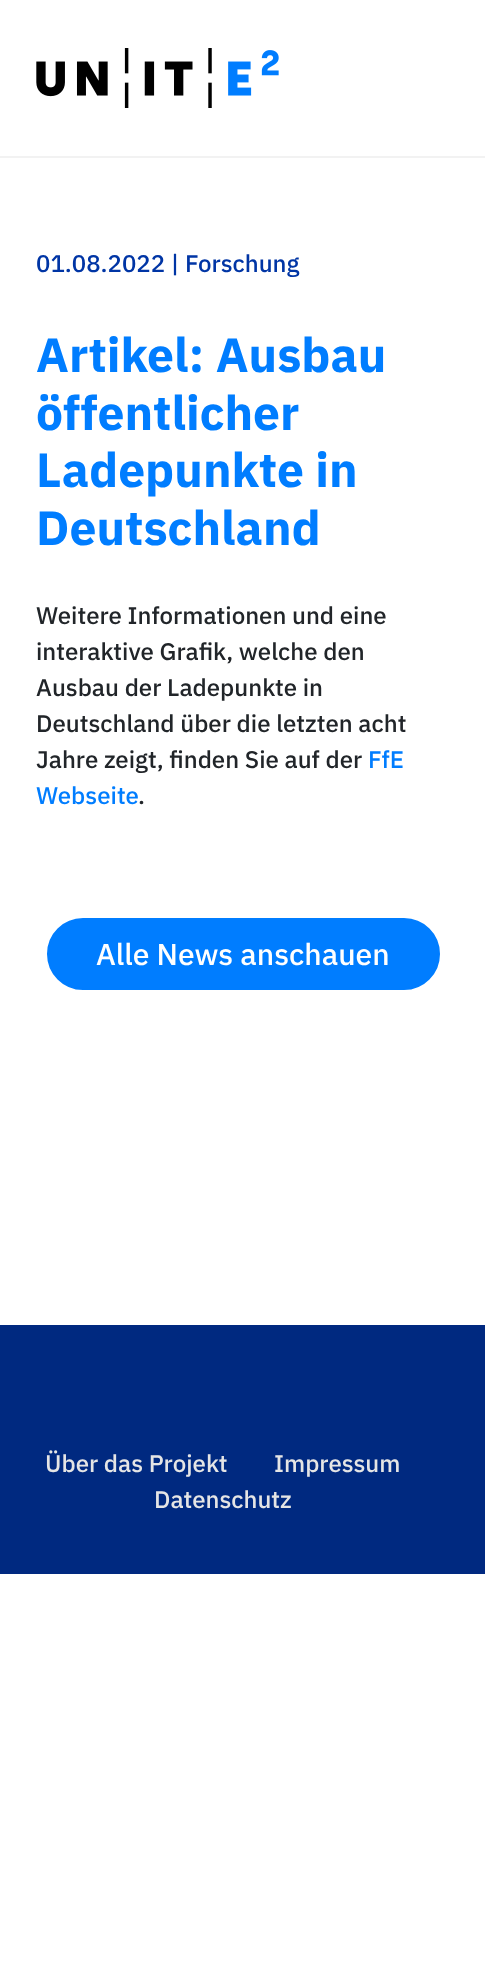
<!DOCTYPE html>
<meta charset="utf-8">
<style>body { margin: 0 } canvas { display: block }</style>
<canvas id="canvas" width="485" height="1983"></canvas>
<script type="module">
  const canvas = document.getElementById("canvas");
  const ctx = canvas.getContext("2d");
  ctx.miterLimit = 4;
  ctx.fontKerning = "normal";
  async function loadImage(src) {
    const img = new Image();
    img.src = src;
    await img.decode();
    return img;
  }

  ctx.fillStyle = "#ffffff";
  ctx.fillRect(0, 0, 485, 1983);
  ctx.fillStyle = "#f2f2f2";
  ctx.fillRect(0, 156, 485, 2);
  ctx.drawImage(await loadImage("img1.png"), 36, 48, 243, 60);
  ctx.font = "500 24px IBM Plex Sans";
  ctx.fillStyle = "#0035a5";
  ctx.fillText("01.08.2022 | Forschung", 36, 272);
  ctx.font = "bold 48px IBM Plex Sans";
  ctx.fillStyle = "#007dff";
  ctx.fillText("Artikel: Ausbau", 36, 372);
  ctx.fillText("öffentlicher", 36, 430);
  ctx.fillText("Ladepunkte in", 36, 487);
  ctx.fillText("Deutschland", 36, 545);
  ctx.font = "500 24px IBM Plex Sans";
  ctx.fillStyle = "#212529";
  ctx.fillText("Weitere Informationen und eine", 36, 624);
  ctx.fillText("interaktive Grafik, welche den", 36, 660);
  ctx.fillText("Ausbau der Ladepunkte in", 36, 696);
  ctx.fillText("Deutschland über die letzten acht", 36, 732);
  ctx.fillText("Jahre zeigt, finden Sie auf der", 36, 768);
  ctx.fillStyle = "#007dff";
  ctx.fillText("FfE", 368, 768);
  ctx.fillText("Webseite", 36, 804);
  ctx.fillStyle = "#212529";
  ctx.fillText(".", 138, 804);
  ctx.fillStyle = "#007dff";
  ctx.beginPath();
  ctx.roundRect(48, 919, 391, 70, 35);
  ctx.fill();
  ctx.strokeStyle = "#007dff";
  ctx.lineWidth = 2;
  ctx.stroke();
  ctx.font = "500 30px IBM Plex Sans";
  ctx.fillStyle = "#ffffff";
  ctx.fillText("Alle News anschauen", 96, 965);
  ctx.fillStyle = "#002980";
  ctx.fillRect(0, 1325, 485, 249);
  ctx.font = "500 24px IBM Plex Sans";
  ctx.fillStyle = "#e5e5e5";
  ctx.fillText("Über das Projekt", 45, 1472);
  ctx.fillText("Impressum", 274, 1472);
  ctx.fillText("Datenschutz", 154, 1508);
</script>
